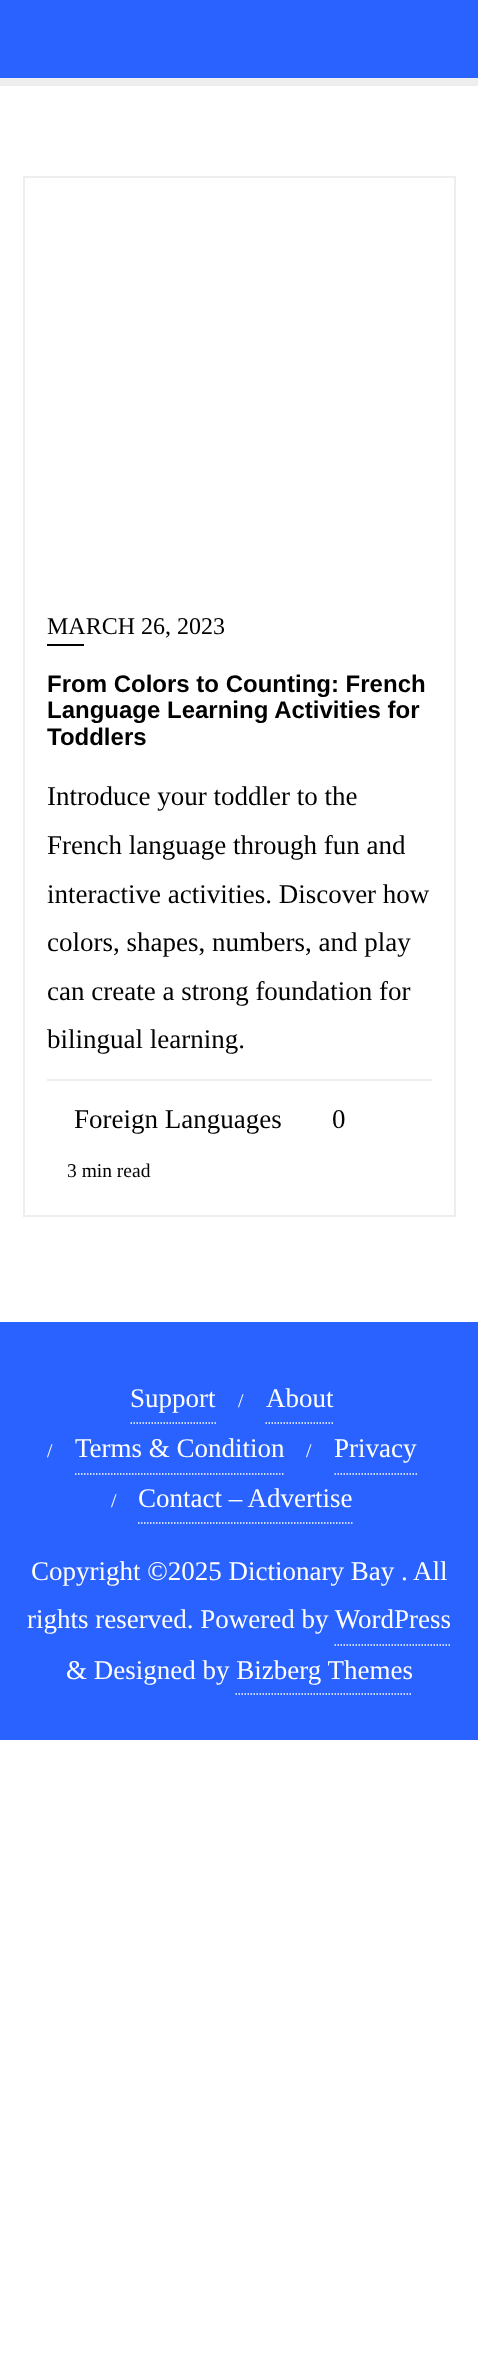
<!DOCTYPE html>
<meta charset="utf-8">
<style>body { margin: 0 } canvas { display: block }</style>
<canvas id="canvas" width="478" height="2379"></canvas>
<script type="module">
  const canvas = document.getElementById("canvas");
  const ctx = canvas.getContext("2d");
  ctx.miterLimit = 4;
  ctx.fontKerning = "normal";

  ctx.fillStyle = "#ffffff";
  ctx.fillRect(0, 0, 478, 2379);
  ctx.fillStyle = "#eeeeee";
  ctx.fillRect(0, 78, 478, 8);
  ctx.fillStyle = "#2962ff";
  ctx.fillRect(0, 0, 478, 78);
  ctx.strokeStyle = "#eeeeee";
  ctx.lineWidth = 2;
  ctx.strokeRect(24, 177, 431, 1039);
  ctx.font = "24px Liberation Serif";
  ctx.fillStyle = "#000000";
  ctx.fillText("MARCH 26, 2023", 47, 634);
  ctx.fillRect(47, 644, 37, 2);
  ctx.font = "bold 24px Liberation Sans";
  ctx.fillText("From Colors to Counting: French", 47, 692);
  ctx.fillText("Language Learning Activities for", 47, 718);
  ctx.fillText("Toddlers", 47, 745);
  ctx.font = "27px Liberation Serif";
  ctx.fillText("Introduce your toddler to the", 47, 805);
  ctx.fillText("French language through fun and", 47, 854);
  ctx.fillText("interactive activities. Discover how", 47, 903);
  ctx.fillText("colors, shapes, numbers, and play", 47, 951);
  ctx.fillText("can create a strong foundation for", 47, 1000);
  ctx.fillText("bilingual learning.", 47, 1048);
  ctx.fillStyle = "#eeeeee";
  ctx.fillRect(47, 1079, 385, 2);
  ctx.fillStyle = "#000000";
  ctx.fillText("Foreign Languages", 74, 1128);
  ctx.fillText("0", 332, 1128);
  ctx.font = "19.5px Liberation Serif";
  ctx.fillText("3 min read", 67, 1177);
  ctx.fillStyle = "#2962ff";
  ctx.fillRect(0, 1322, 478, 418);
  ctx.beginPath();
  ctx.moveTo(130.5, 1423);
  ctx.lineTo(216, 1423);
  ctx.strokeStyle = "#ffffff";
  ctx.lineWidth = 1.5;
  ctx.setLineDash([1.5, 1.5]);
  ctx.stroke();
  ctx.font = "27px Liberation Serif";
  ctx.fillStyle = "#ffffff";
  ctx.fillText("Support", 130, 1407);
  ctx.font = "19.5px Liberation Serif";
  ctx.fillText("/", 238, 1407);
  ctx.beginPath();
  ctx.moveTo(265.5, 1423);
  ctx.lineTo(333, 1423);
  ctx.stroke();
  ctx.font = "27px Liberation Serif";
  ctx.fillText("About", 266, 1407);
  ctx.font = "19.5px Liberation Serif";
  ctx.fillText("/", 47, 1457);
  ctx.beginPath();
  ctx.moveTo(75, 1474);
  ctx.lineTo(285, 1474);
  ctx.stroke();
  ctx.font = "27px Liberation Serif";
  ctx.fillText("Terms & Condition", 75, 1457);
  ctx.font = "19.5px Liberation Serif";
  ctx.fillText("/", 306, 1457);
  ctx.beginPath();
  ctx.moveTo(334.5, 1474);
  ctx.lineTo(417, 1474);
  ctx.stroke();
  ctx.font = "27px Liberation Serif";
  ctx.fillText("Privacy", 334, 1457);
  ctx.font = "19.5px Liberation Serif";
  ctx.fillText("/", 111, 1507);
  ctx.beginPath();
  ctx.moveTo(138, 1523);
  ctx.lineTo(352.5, 1523);
  ctx.stroke();
  ctx.font = "27px Liberation Serif";
  ctx.fillText("Contact – Advertise", 138, 1507);
  ctx.fillText("Copyright ©2025 Dictionary Bay . All", 31, 1580);
  ctx.fillText("rights reserved. Powered by WordPress", 27, 1628);
  ctx.beginPath();
  ctx.moveTo(334.5, 1645);
  ctx.lineTo(451.5, 1645);
  ctx.stroke();
  ctx.fillText("& Designed by Bizberg Themes", 66, 1679);
  ctx.beginPath();
  ctx.moveTo(235.5, 1694);
  ctx.lineTo(412.5, 1694);
  ctx.stroke();
</script>
